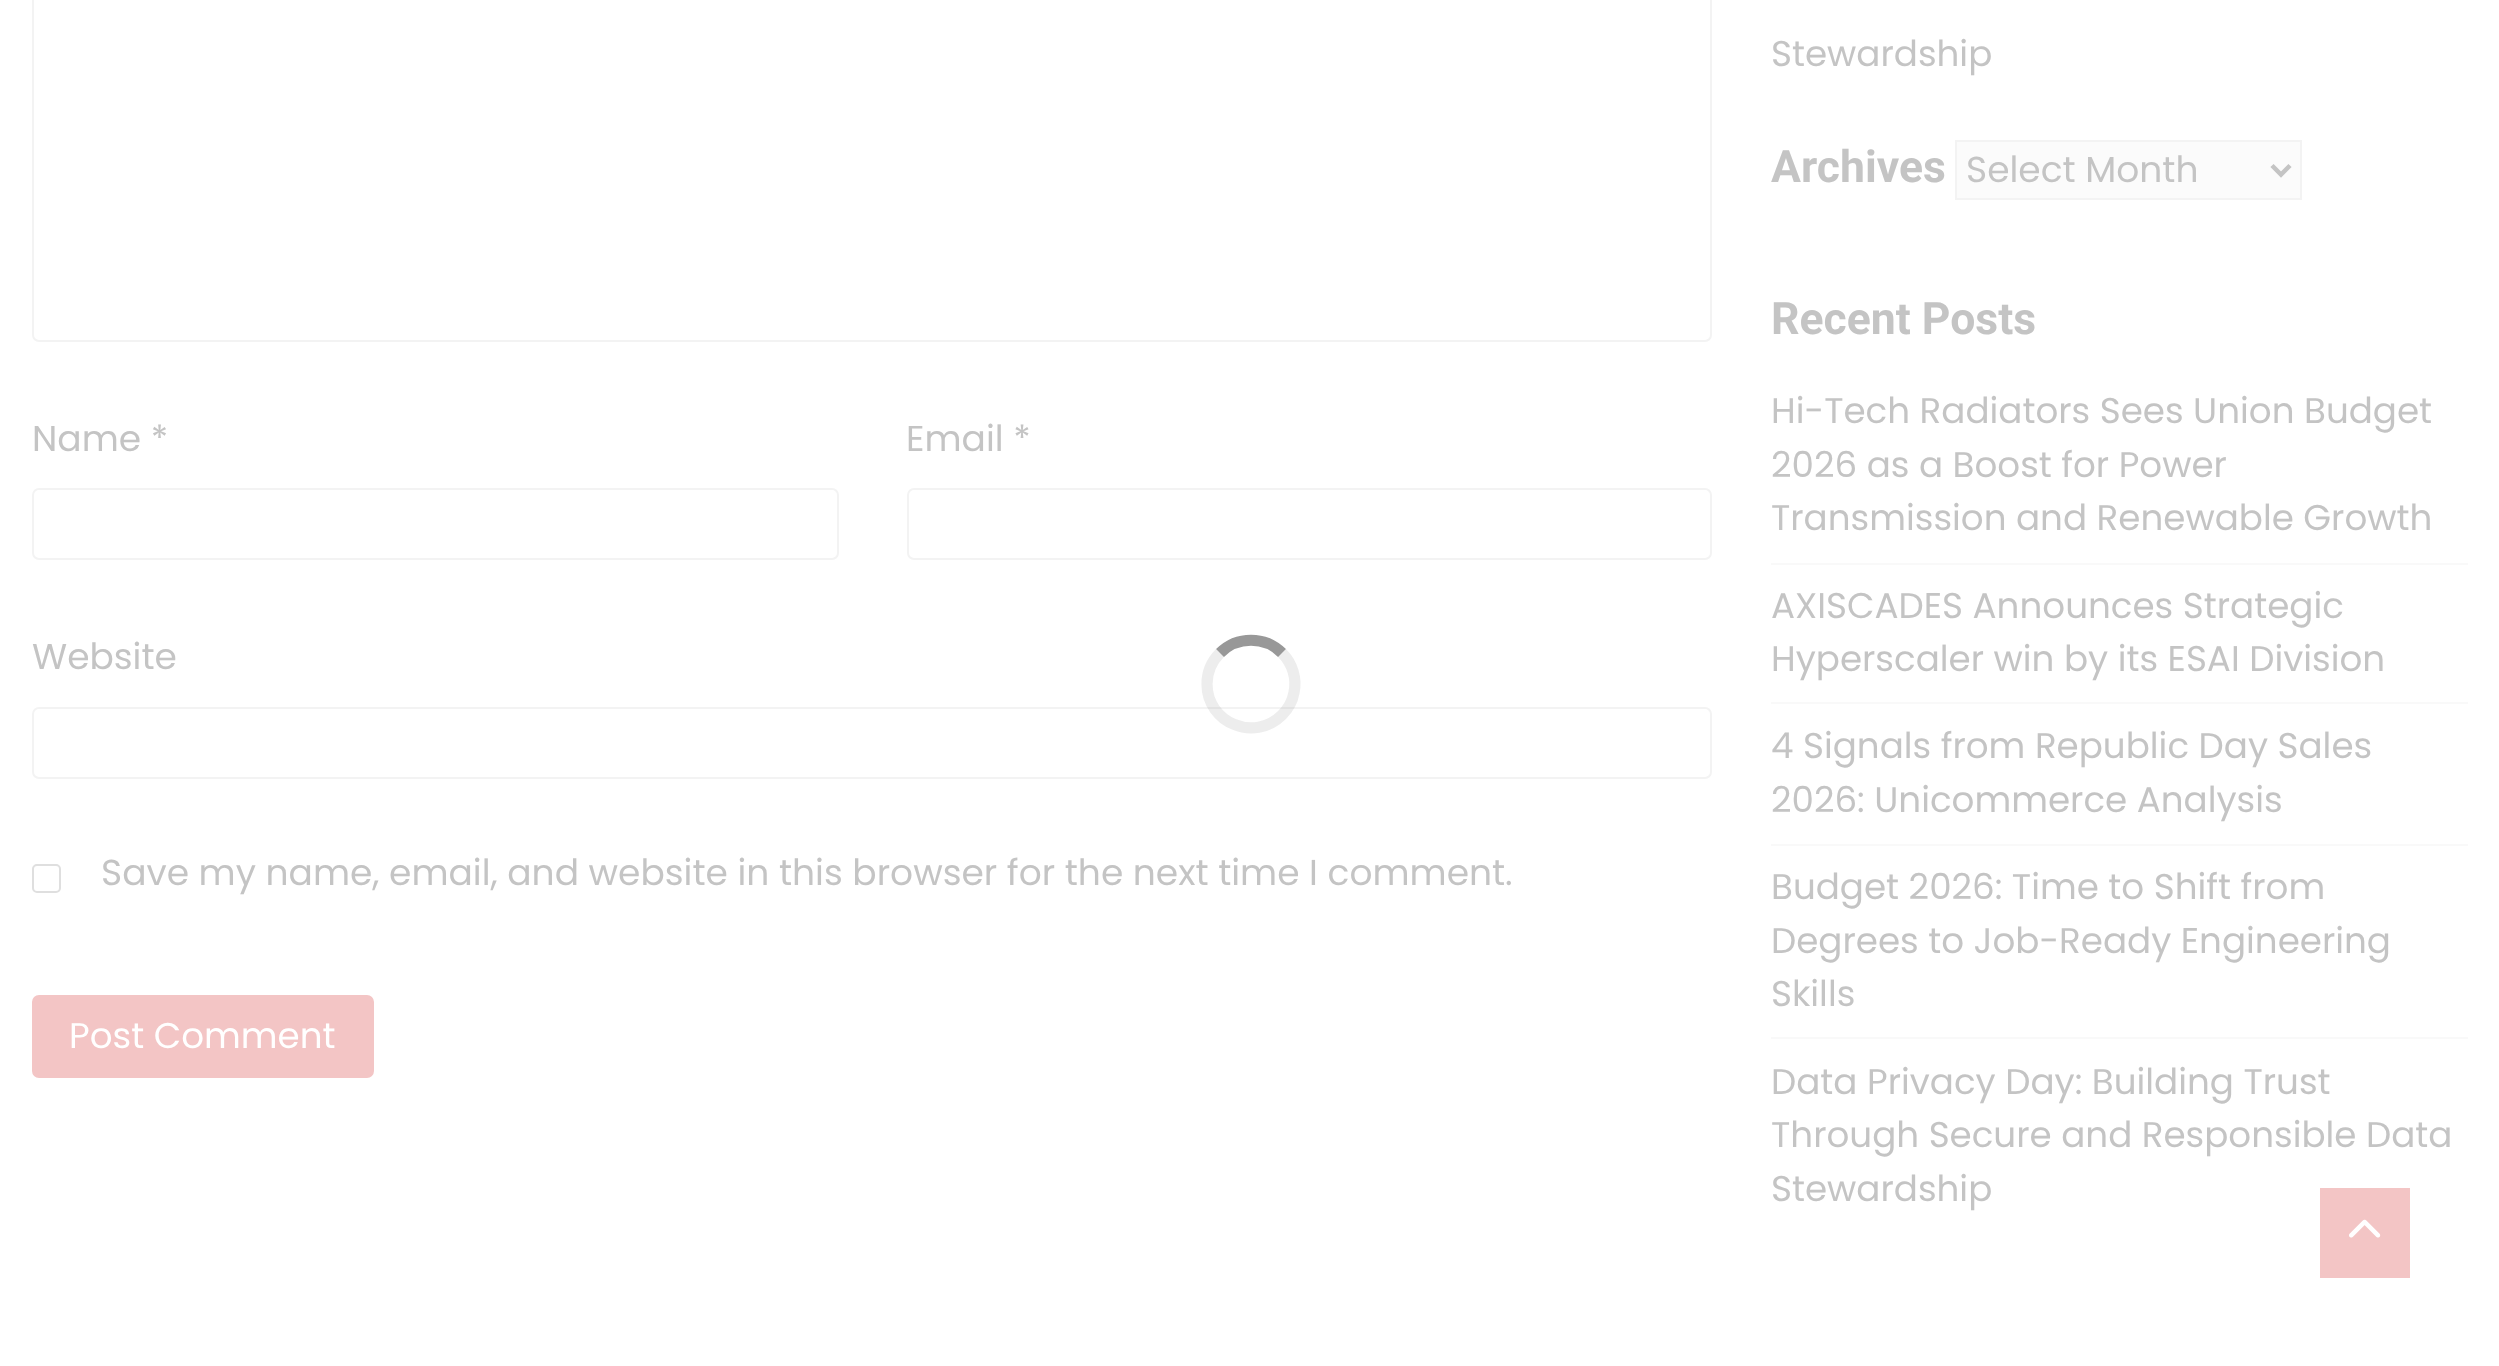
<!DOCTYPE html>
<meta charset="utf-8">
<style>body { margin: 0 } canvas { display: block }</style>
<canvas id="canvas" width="2499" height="1366"></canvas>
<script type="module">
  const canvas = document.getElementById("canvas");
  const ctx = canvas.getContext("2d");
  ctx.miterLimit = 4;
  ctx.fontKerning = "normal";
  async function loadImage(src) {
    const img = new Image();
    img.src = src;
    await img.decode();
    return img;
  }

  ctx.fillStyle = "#ffffff";
  ctx.fillRect(0, 0, 2499, 1366);
  ctx.beginPath();
  ctx.roundRect(33, -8, 1678, 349, 6);
  ctx.strokeStyle = "#f3f3f3";
  ctx.lineWidth = 2;
  ctx.stroke();
  ctx.font = "36px Poppins";
  ctx.fillStyle = "#c4c4c4";
  ctx.fillText("Name *", 32, 451);
  ctx.beginPath();
  ctx.roundRect(33, 489, 805, 70, 6);
  ctx.stroke();
  ctx.fillText("Email *", 906, 451);
  ctx.beginPath();
  ctx.roundRect(908, 489, 803, 70, 6);
  ctx.stroke();
  ctx.fillText("Website", 32, 669);
  ctx.beginPath();
  ctx.roundRect(33, 708, 1678, 70, 6);
  ctx.stroke();
  ctx.beginPath();
  ctx.roundRect(33, 865, 27, 27, 4);
  ctx.strokeStyle = "#dfdfdf";
  ctx.stroke();
  ctx.fillText("Save my name, email, and website in this browser for the next time I comment.", 101, 885);
  ctx.fillStyle = "#f3c5c5";
  ctx.beginPath();
  ctx.roundRect(33, 996, 340, 81, 6);
  ctx.fill();
  ctx.strokeStyle = "#f3c5c5";
  ctx.stroke();
  ctx.font = "35.7px Poppins";
  ctx.fillStyle = "#ffffff";
  ctx.fillText("Post Comment", 69, 1048);
  ctx.fillStyle = "#c4c4c4";
  ctx.fillText("Stewardship", 1771, 66);
  ctx.font = "bold 44.5px Roboto";
  ctx.fillText("Archives", 1771, 182);
  ctx.fillStyle = "#fbfbfb";
  ctx.beginPath();
  ctx.rect(1956, 141, 345, 58);
  ctx.fill();
  ctx.strokeStyle = "#f3f3f3";
  ctx.stroke();
  ctx.beginPath();
  ctx.moveTo(2272, 165.5);
  ctx.lineTo(2281, 174.5);
  ctx.lineTo(2290, 165.5);
  ctx.strokeStyle = "#c4c4c4";
  ctx.lineWidth = 4.5;
  ctx.stroke();
  ctx.font = "36px Poppins";
  ctx.fillStyle = "#c4c4c4";
  ctx.fillText("Select Month", 1966, 182);
  ctx.font = "bold 44.5px Roboto";
  ctx.fillText("Recent Posts", 1771, 334);
  ctx.fillStyle = "#f9f9f9";
  ctx.fillRect(1771, 563, 697, 2);
  ctx.font = "35.7px Poppins";
  ctx.fillStyle = "#c4c4c4";
  ctx.fillText("Hi-Tech Radiators Sees Union Budget", 1771, 423);
  ctx.fillText("2026 as a Boost for Power", 1771, 477);
  ctx.fillText("Transmission and Renewable Growth", 1771, 530);
  ctx.fillStyle = "#f9f9f9";
  ctx.fillRect(1771, 702, 697, 2);
  ctx.fillStyle = "#c4c4c4";
  ctx.fillText("AXISCADES Announces Strategic", 1771, 618);
  ctx.fillText("Hyperscaler win by its ESAI Division", 1771, 671);
  ctx.fillStyle = "#f9f9f9";
  ctx.fillRect(1771, 844, 697, 2);
  ctx.fillStyle = "#c4c4c4";
  ctx.fillText("4 Signals from Republic Day Sales", 1771, 758);
  ctx.fillText("2026: Unicommerce Analysis", 1771, 812);
  ctx.fillStyle = "#f9f9f9";
  ctx.fillRect(1771, 1037, 697, 2);
  ctx.fillStyle = "#c4c4c4";
  ctx.fillText("Budget 2026: Time to Shift from", 1771, 899);
  ctx.fillText("Degrees to Job-Ready Engineering", 1771, 953);
  ctx.fillText("Skills", 1771, 1006);
  ctx.fillText("Data Privacy Day: Building Trust", 1771, 1094);
  ctx.fillText("Through Secure and Responsible Data", 1771, 1147);
  ctx.fillText("Stewardship", 1771, 1201);
  ctx.beginPath();
  ctx.moveTo(1220, 653);
  ctx.bezierCurveTo(1237, 636, 1265, 636, 1282, 653);
  ctx.strokeStyle = "#989898";
  ctx.lineWidth = 11.2;
  ctx.stroke();
  ctx.beginPath();
  ctx.moveTo(1282, 653);
  ctx.bezierCurveTo(1292.5, 663.5, 1297, 678.5, 1294, 692.5);
  ctx.bezierCurveTo(1292.5, 701, 1288, 709, 1282, 715);
  ctx.bezierCurveTo(1254.5, 742.5, 1207, 723, 1207, 684);
  ctx.bezierCurveTo(1207, 672.5, 1212, 661, 1220, 653);
  ctx.strokeStyle = "rgba(29, 29, 29, 0.08)";
  ctx.stroke();
  ctx.fillStyle = "#f3c5c5";
  ctx.fillRect(2320, 1188, 90, 90);
  ctx.drawImage(await loadImage("img1.png"), 2349, 1219, 32, 19);
</script>
